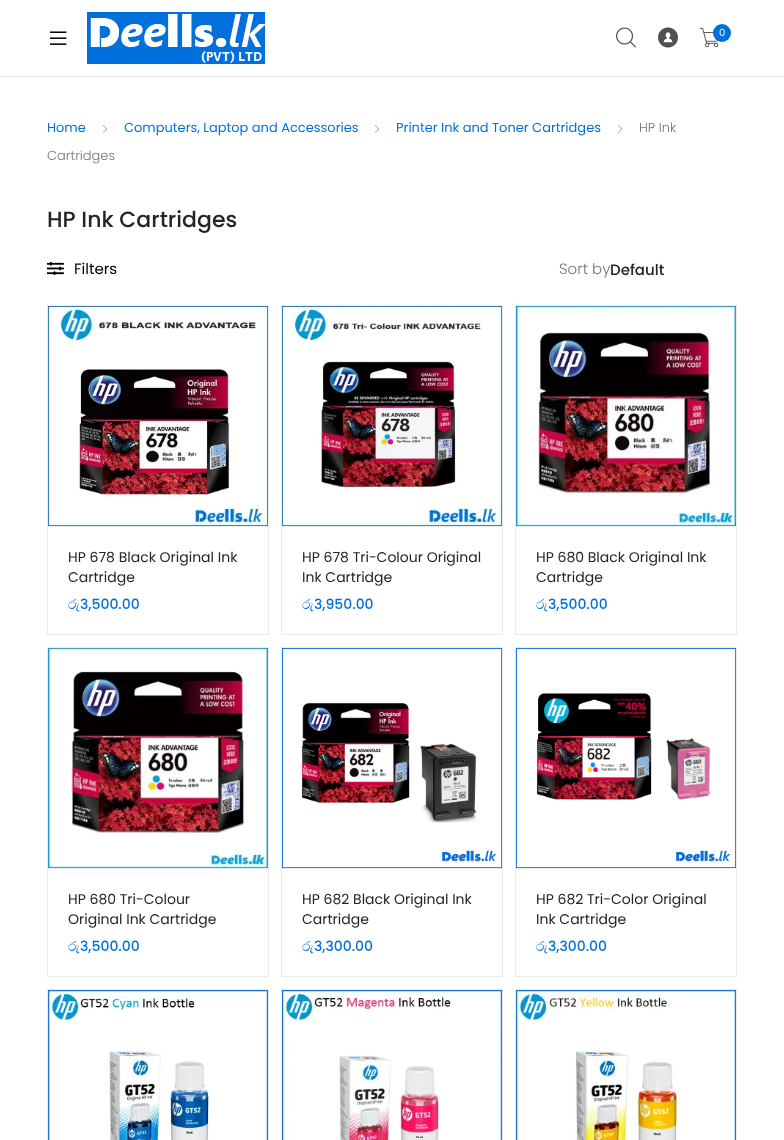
<!DOCTYPE html>
<meta charset="utf-8">
<style>body { margin: 0 } canvas { display: block }</style>
<canvas id="canvas" width="784" height="1140"></canvas>
<script type="module">
  const canvas = document.getElementById("canvas");
  const ctx = canvas.getContext("2d");
  ctx.miterLimit = 4;
  ctx.fontKerning = "normal";
  async function loadImage(src) {
    const img = new Image();
    img.src = src;
    await img.decode();
    return img;
  }

  ctx.fillStyle = "#ffffff";
  ctx.fillRect(0, 0, 784, 1140);
  ctx.fillStyle = "#e6e6e6";
  ctx.fillRect(0, 76, 784, 1);
  ctx.drawImage(await loadImage("img1.png"), 50, 31, 17, 14);
  ctx.drawImage(await loadImage("img2.png"), 87, 12, 178, 52);
  ctx.drawImage(await loadImage("img3.png"), 616, 27, 20, 21);
  ctx.drawImage(await loadImage("img4.png"), 658, 27, 20, 21);
  ctx.drawImage(await loadImage("img5.png"), 700, 27, 19, 21);
  ctx.fillStyle = "#0071dc";
  ctx.beginPath();
  ctx.arc(722, 33, 9, 0, Math.PI * 2);
  ctx.fill();
  ctx.font = "10px Poppins";
  ctx.fillStyle = "#ffffff";
  ctx.fillText("0", 719, 36);
  ctx.font = "13px Poppins";
  ctx.fillStyle = "#0071dc";
  ctx.fillText("Home", 47, 132);
  ctx.drawImage(await loadImage("img6.png"), 102, 125, 5, 8);
  ctx.fillText("Computers, Laptop and Accessories", 124, 132);
  ctx.drawImage(await loadImage("img6.png"), 374, 125, 5, 8);
  ctx.fillText("Printer Ink and Toner Cartridges", 396, 132);
  ctx.drawImage(await loadImage("img6.png"), 617, 125, 5, 8);
  ctx.font = "300 13px Poppins";
  ctx.fillStyle = "#757575";
  ctx.fillText("HP Ink", 639, 132);
  ctx.fillText("Cartridges", 47, 160);
  ctx.font = "500 22px Poppins";
  ctx.fillStyle = "#252525";
  ctx.fillText("HP Ink Cartridges", 47, 227);
  ctx.drawImage(await loadImage("img7.png"), 47, 261, 17, 15);
  ctx.font = "15px Poppins";
  ctx.fillStyle = "#000000";
  ctx.fillText("Filters", 74, 274);
  ctx.font = "300 15px Poppins";
  ctx.fillStyle = "#757575";
  ctx.fillText("Sort by", 559, 274);
  ctx.font = "500 15px Poppins";
  ctx.fillStyle = "#252525";
  ctx.fillText("Default", 610, 275);
  ctx.strokeStyle = "#ebebeb";
  ctx.strokeRect(47.5, 305.5, 221, 329);
  ctx.fillStyle = "#ebebeb";
  ctx.fillRect(48, 526, 220, 1);
  ctx.drawImage(await loadImage("img8.png"), 48, 306, 220, 220);
  ctx.font = "14px Poppins";
  ctx.fillStyle = "#252525";
  ctx.fillText("HP 678 Black Original Ink", 68, 562);
  ctx.fillText("Cartridge", 68, 582);
  ctx.font = "14px FreeSerif";
  ctx.fillStyle = "#0071dc";
  ctx.fillText("රු", 68, 609);
  ctx.font = "500 14px Poppins";
  ctx.fillText("3,500.00", 80, 609);
  ctx.strokeRect(281.5, 305.5, 221, 329);
  ctx.fillStyle = "#ebebeb";
  ctx.fillRect(282, 526, 220, 1);
  ctx.drawImage(await loadImage("img9.png"), 282, 306, 220, 220);
  ctx.font = "14px Poppins";
  ctx.fillStyle = "#252525";
  ctx.fillText("HP 678 Tri-Colour Original", 302, 562);
  ctx.fillText("Ink Cartridge", 302, 582);
  ctx.font = "14px FreeSerif";
  ctx.fillStyle = "#0071dc";
  ctx.fillText("රු", 302, 609);
  ctx.font = "500 14px Poppins";
  ctx.fillText("3,950.00", 314, 609);
  ctx.strokeRect(515.5, 305.5, 221, 329);
  ctx.fillStyle = "#ebebeb";
  ctx.fillRect(516, 526, 220, 1);
  ctx.drawImage(await loadImage("img10.png"), 516, 306, 220, 220);
  ctx.font = "14px Poppins";
  ctx.fillStyle = "#252525";
  ctx.fillText("HP 680 Black Original Ink", 536, 562);
  ctx.fillText("Cartridge", 536, 582);
  ctx.font = "14px FreeSerif";
  ctx.fillStyle = "#0071dc";
  ctx.fillText("රු", 536, 609);
  ctx.font = "500 14px Poppins";
  ctx.fillText("3,500.00", 548, 609);
  ctx.strokeRect(47.5, 647.5, 221, 329);
  ctx.fillStyle = "#ebebeb";
  ctx.fillRect(48, 868, 220, 1);
  ctx.drawImage(await loadImage("img11.png"), 48, 648, 220, 220);
  ctx.font = "14px Poppins";
  ctx.fillStyle = "#252525";
  ctx.fillText("HP 680 Tri-Colour", 68, 904);
  ctx.fillText("Original Ink Cartridge", 68, 924);
  ctx.font = "14px FreeSerif";
  ctx.fillStyle = "#0071dc";
  ctx.fillText("රු", 68, 951);
  ctx.font = "500 14px Poppins";
  ctx.fillText("3,500.00", 80, 951);
  ctx.strokeRect(281.5, 647.5, 221, 329);
  ctx.fillStyle = "#ebebeb";
  ctx.fillRect(282, 868, 220, 1);
  ctx.drawImage(await loadImage("img12.png"), 282, 648, 220, 220);
  ctx.font = "14px Poppins";
  ctx.fillStyle = "#252525";
  ctx.fillText("HP 682 Black Original Ink", 302, 904);
  ctx.fillText("Cartridge", 302, 924);
  ctx.font = "14px FreeSerif";
  ctx.fillStyle = "#0071dc";
  ctx.fillText("රු", 302, 951);
  ctx.font = "500 14px Poppins";
  ctx.fillText("3,300.00", 314, 951);
  ctx.strokeRect(515.5, 647.5, 221, 329);
  ctx.fillStyle = "#ebebeb";
  ctx.fillRect(516, 868, 220, 1);
  ctx.drawImage(await loadImage("img13.png"), 516, 648, 220, 220);
  ctx.font = "14px Poppins";
  ctx.fillStyle = "#252525";
  ctx.fillText("HP 682 Tri-Color Original", 536, 904);
  ctx.fillText("Ink Cartridge", 536, 924);
  ctx.font = "14px FreeSerif";
  ctx.fillStyle = "#0071dc";
  ctx.fillText("රු", 536, 951);
  ctx.font = "500 14px Poppins";
  ctx.fillText("3,300.00", 548, 951);
  ctx.strokeRect(47.5, 989.5, 221, 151);
  ctx.drawImage(await loadImage("img14.png"), 48, 990, 220, 150);
  ctx.strokeRect(281.5, 989.5, 221, 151);
  ctx.drawImage(await loadImage("img15.png"), 282, 990, 220, 150);
  ctx.strokeRect(515.5, 989.5, 221, 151);
  ctx.drawImage(await loadImage("img16.png"), 516, 990, 220, 150);
</script>
